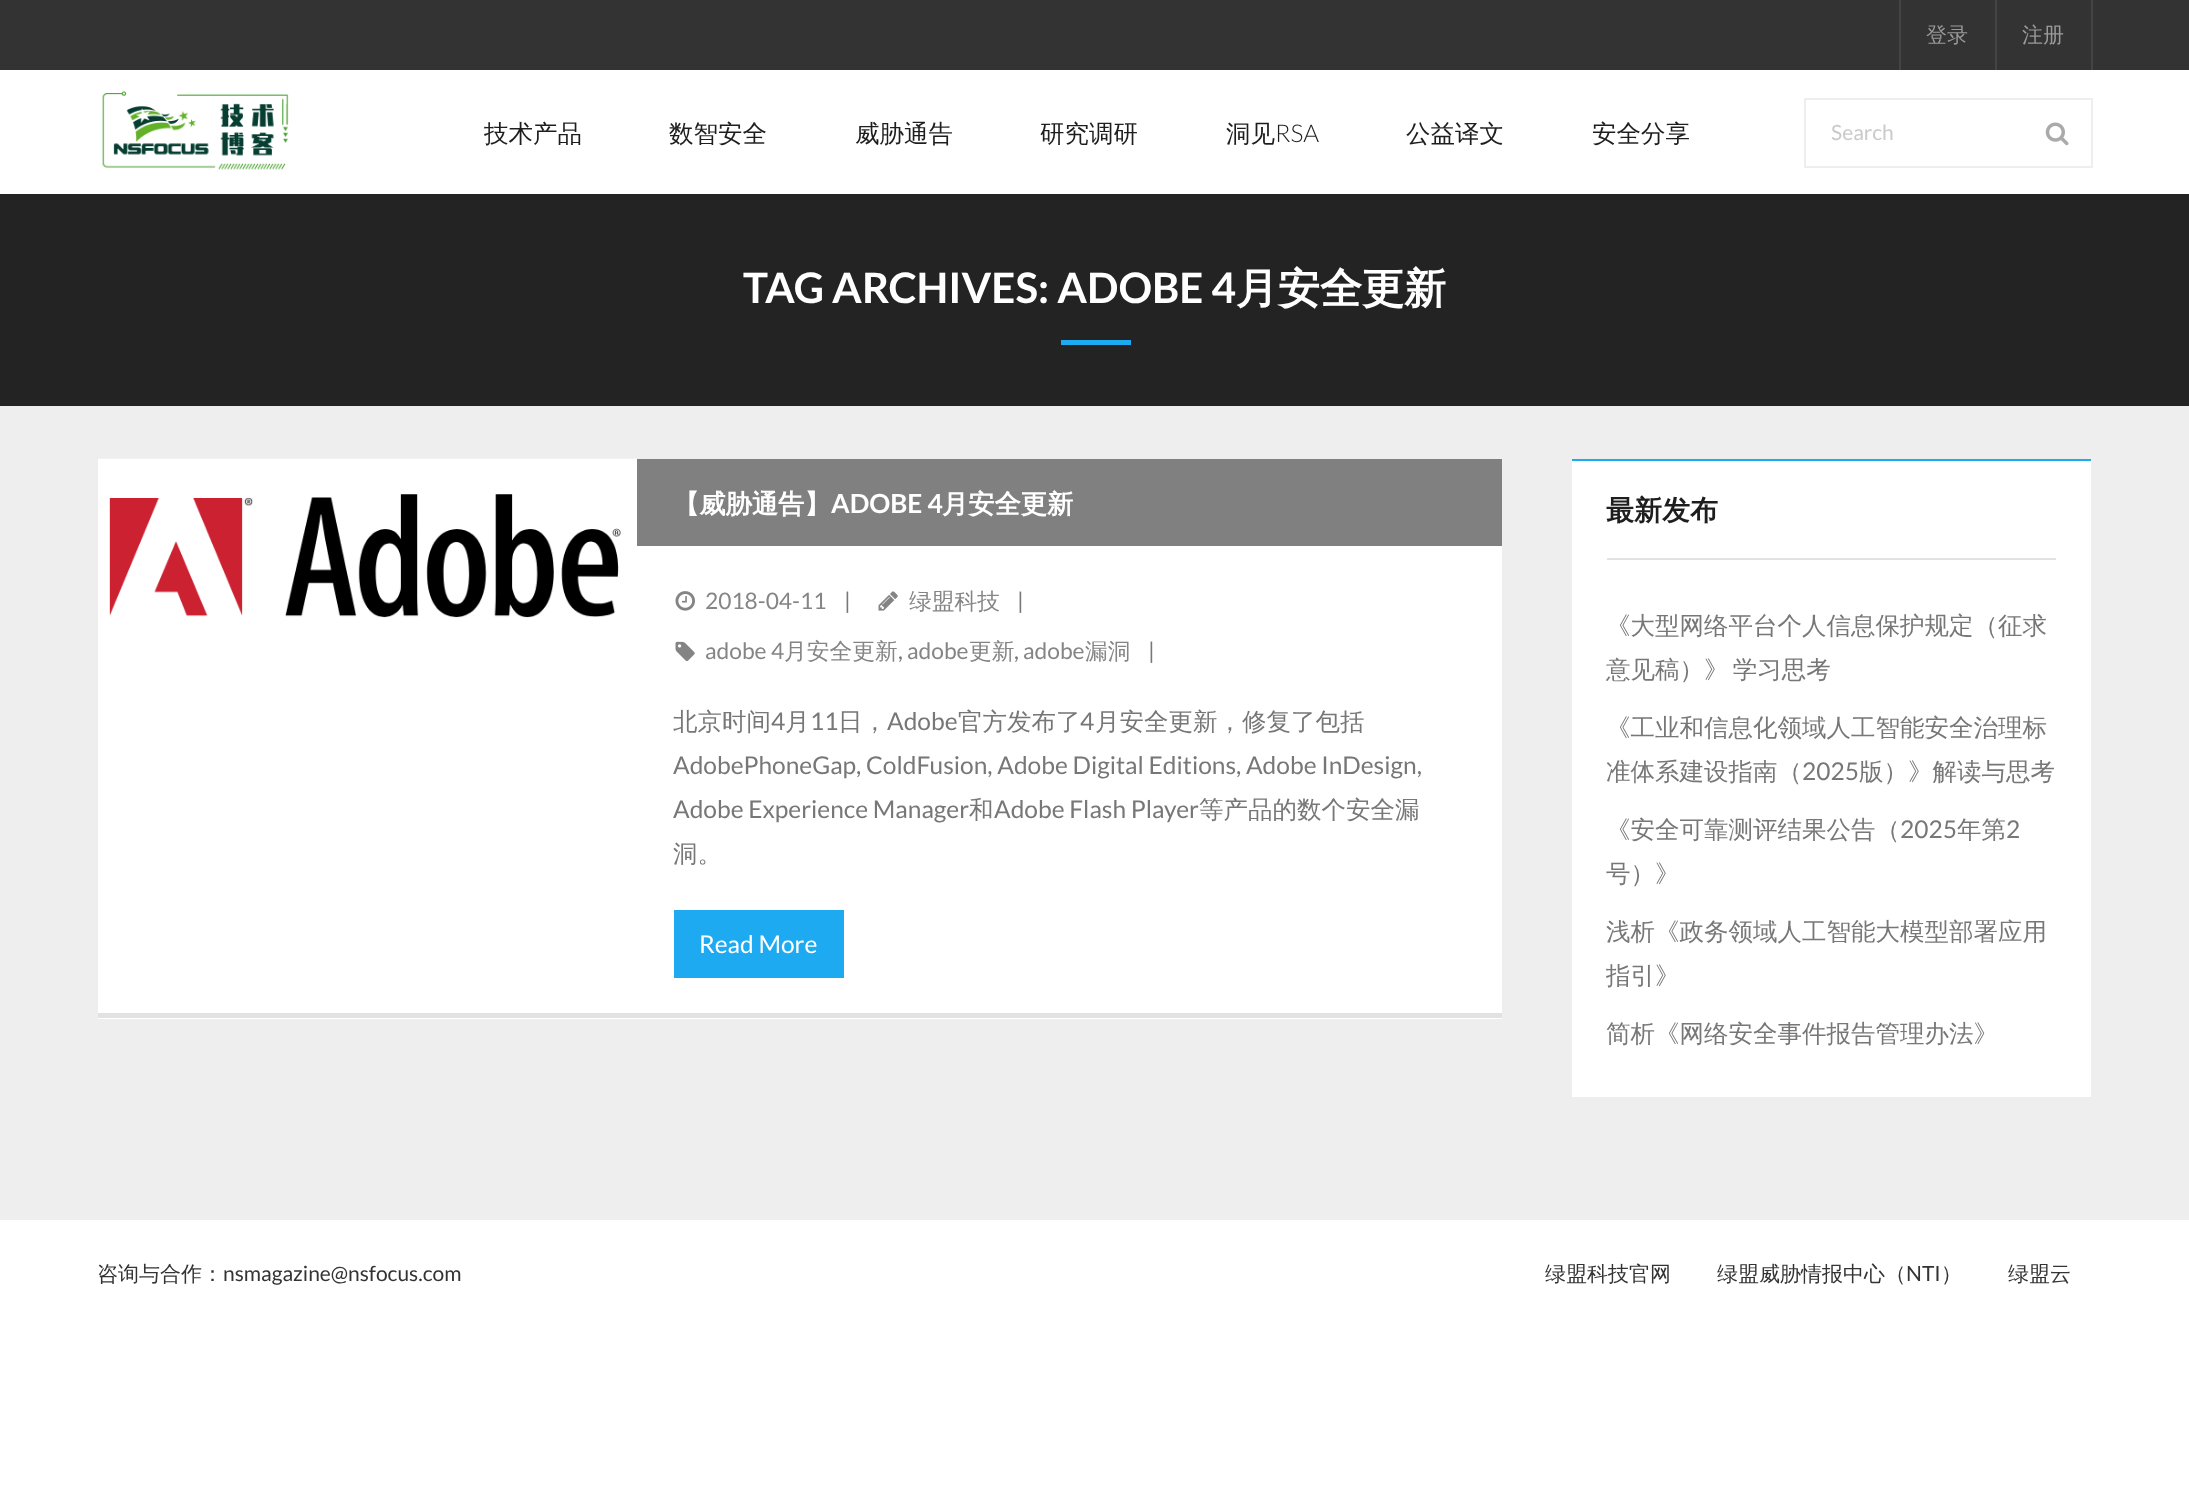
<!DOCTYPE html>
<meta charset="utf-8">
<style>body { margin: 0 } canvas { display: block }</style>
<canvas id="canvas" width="2189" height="1492"></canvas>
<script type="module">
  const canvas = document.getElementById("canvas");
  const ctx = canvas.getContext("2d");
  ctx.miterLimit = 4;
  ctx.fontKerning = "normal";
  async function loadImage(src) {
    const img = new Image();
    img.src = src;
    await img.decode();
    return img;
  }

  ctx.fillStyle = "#ffffff";
  ctx.fillRect(0, 0, 2189, 1492);
  ctx.fillStyle = "#eeeeee";
  ctx.fillRect(0, 406, 2189, 814);
  ctx.fillStyle = "#333333";
  ctx.fillRect(0, 0, 2189, 70);
  ctx.fillStyle = "#444444";
  ctx.fillRect(1899, 0, 2, 70);
  ctx.font = "500 21px WenQuanYi Zen Hei";
  ctx.fillStyle = "#999999";
  ctx.fillText("登录", 1926, 42);
  ctx.fillStyle = "#444444";
  ctx.fillRect(2091, 0, 2, 70);
  ctx.fillRect(1995, 0, 2, 70);
  ctx.fillStyle = "#999999";
  ctx.fillText("注册", 2022, 42);
  ctx.drawImage(await loadImage("img1.png"), 102, 91, 187, 79);
  ctx.font = "500 24.5px WenQuanYi Zen Hei";
  ctx.fillStyle = "#1e1e1e";
  ctx.fillText("技术产品", 484, 142);
  ctx.fillText("数智安全", 669, 142);
  ctx.fillText("威胁通告", 855, 142);
  ctx.fillText("研究调研", 1040, 142);
  ctx.fillText("洞见", 1226, 142);
  ctx.font = "300 24.5px Lato";
  ctx.fillText("RSA", 1275, 142);
  ctx.font = "500 24.5px WenQuanYi Zen Hei";
  ctx.fillText("公益译文", 1406, 142);
  ctx.fillText("安全分享", 1592, 142);
  ctx.strokeStyle = "#eeeeee";
  ctx.lineWidth = 2;
  ctx.strokeRect(1805, 99, 287, 68);
  ctx.font = "21px Lato";
  ctx.fillStyle = "#cacaca";
  ctx.fillText("Search", 1831, 140);
  ctx.drawImage(await loadImage("img2.png"), 2045, 122, 24, 24);
  ctx.fillStyle = "#232323";
  ctx.fillRect(0, 194, 2189, 212);
  ctx.font = "bold 42px Lato";
  ctx.fillStyle = "#ffffff";
  ctx.fillText("TAG ARCHIVES: ADOBE 4", 743, 303);
  ctx.font = "bold 42px WenQuanYi Zen Hei";
  ctx.fillText("月安全更新", 1236, 303);
  ctx.fillStyle = "#1eaaf1";
  ctx.fillRect(1061, 340, 70, 5);
  ctx.fillStyle = "#ffffff";
  ctx.fillRect(98, 546, 1404, 473);
  ctx.fillStyle = "#e2e2e2";
  ctx.fillRect(98, 1013, 1404, 5);
  ctx.drawImage(await loadImage("img3.png"), 98, 458, 539, 160);
  ctx.fillStyle = "#808080";
  ctx.fillRect(637, 459, 865, 87);
  ctx.font = "bold 26.25px WenQuanYi Zen Hei";
  ctx.fillStyle = "#ffffff";
  ctx.fillText("【威胁通告】", 673, 513);
  ctx.font = "bold 26.25px Lato";
  ctx.fillText("ADOBE 4", 831, 513);
  ctx.font = "bold 26.25px WenQuanYi Zen Hei";
  ctx.fillText("月安全更新", 942, 513);
  ctx.drawImage(await loadImage("img4.png"), 675, 591, 20, 20);
  ctx.font = "22.75px Lato";
  ctx.fillStyle = "#858585";
  ctx.fillText("2018-04-11", 705, 609);
  ctx.fillStyle = "#777777";
  ctx.fillText("|", 844, 609);
  ctx.drawImage(await loadImage("img5.png"), 878, 591, 20, 20);
  ctx.font = "500 22.75px WenQuanYi Zen Hei";
  ctx.fillStyle = "#858585";
  ctx.fillText("绿盟科技", 909, 609);
  ctx.font = "22.75px Lato";
  ctx.fillStyle = "#777777";
  ctx.fillText("|", 1017, 609);
  ctx.drawImage(await loadImage("img6.png"), 675, 641, 20, 21);
  ctx.fillStyle = "#858585";
  ctx.fillText("adobe 4", 705, 659);
  ctx.font = "500 22.75px WenQuanYi Zen Hei";
  ctx.fillText("月安全更新", 784, 659);
  ctx.font = "22.75px Lato";
  ctx.fillStyle = "#777777";
  ctx.fillText(",", 898, 659);
  ctx.fillStyle = "#858585";
  ctx.fillText("adobe", 907, 659);
  ctx.font = "500 22.75px WenQuanYi Zen Hei";
  ctx.fillText("更新", 969, 659);
  ctx.font = "22.75px Lato";
  ctx.fillStyle = "#777777";
  ctx.fillText(",", 1014, 659);
  ctx.fillStyle = "#858585";
  ctx.fillText("adobe", 1023, 659);
  ctx.font = "500 22.75px WenQuanYi Zen Hei";
  ctx.fillText("漏洞", 1085, 659);
  ctx.font = "22.75px Lato";
  ctx.fillStyle = "#777777";
  ctx.fillText("|", 1148, 659);
  ctx.font = "500 24.5px WenQuanYi Zen Hei";
  ctx.fillText("北京时间", 673, 730);
  ctx.font = "24.5px Lato";
  ctx.fillText("4", 771, 730);
  ctx.font = "500 24.5px WenQuanYi Zen Hei";
  ctx.fillText("月", 785, 730);
  ctx.font = "24.5px Lato";
  ctx.fillText("11", 810, 730);
  ctx.font = "500 24.5px WenQuanYi Zen Hei";
  ctx.fillText("日，", 838, 730);
  ctx.font = "24.5px Lato";
  ctx.fillText("Adobe", 887, 730);
  ctx.font = "500 24.5px WenQuanYi Zen Hei";
  ctx.fillText("官方发布了", 958, 730);
  ctx.font = "24.5px Lato";
  ctx.fillText("4", 1080, 730);
  ctx.font = "500 24.5px WenQuanYi Zen Hei";
  ctx.fillText("月安全更新，修复了包括", 1095, 730);
  ctx.font = "24.5px Lato";
  ctx.fillText("AdobePhoneGap, ColdFusion, Adobe Digital Editions, Adobe InDesign,", 673, 774);
  ctx.fillText("Adobe Experience Manager", 673, 818);
  ctx.font = "500 24.5px WenQuanYi Zen Hei";
  ctx.fillText("和", 969, 818);
  ctx.font = "24.5px Lato";
  ctx.fillText("Adobe Flash Player", 994, 818);
  ctx.font = "500 24.5px WenQuanYi Zen Hei";
  ctx.fillText("等产品的数个安全漏", 1199, 818);
  ctx.fillText("洞。", 673, 862);
  ctx.fillStyle = "#1eaaf1";
  ctx.fillRect(674, 910, 170, 68);
  ctx.font = "24.5px Lato";
  ctx.fillStyle = "#ffffff";
  ctx.fillText("Read More", 699, 953);
  ctx.fillRect(1572, 461, 519, 636);
  ctx.fillStyle = "#1eaaf1";
  ctx.fillRect(1572, 459, 519, 2);
  ctx.fillStyle = "#e2e2e2";
  ctx.fillRect(1607, 558, 449, 2);
  ctx.font = "bold 28px WenQuanYi Zen Hei";
  ctx.fillStyle = "#1e1e1e";
  ctx.fillText("最新发布", 1606, 520);
  ctx.font = "500 24.5px WenQuanYi Zen Hei";
  ctx.fillStyle = "#777777";
  ctx.fillText("《大型网络平台个人信息保护规定（征求", 1606, 634);
  ctx.wordSpacing = "-3px";
  ctx.fillText("意见稿）》 学习思考", 1606, 678);
  ctx.wordSpacing = "0px";
  ctx.fillText("《工业和信息化领域人工智能安全治理标", 1606, 736);
  ctx.fillText("准体系建设指南（", 1606, 780);
  ctx.font = "24.5px Lato";
  ctx.fillText("2025", 1802, 780);
  ctx.font = "500 24.5px WenQuanYi Zen Hei";
  ctx.fillText("版）》解读与思考", 1859, 780);
  ctx.fillText("《安全可靠测评结果公告（", 1606, 838);
  ctx.font = "24.5px Lato";
  ctx.fillText("2025", 1900, 838);
  ctx.font = "500 24.5px WenQuanYi Zen Hei";
  ctx.fillText("年第", 1957, 838);
  ctx.font = "24.5px Lato";
  ctx.fillText("2", 2006, 838);
  ctx.font = "500 24.5px WenQuanYi Zen Hei";
  ctx.fillText("号）》", 1606, 882);
  ctx.fillText("浅析《政务领域人工智能大模型部署应用", 1606, 940);
  ctx.fillText("指引》", 1606, 984);
  ctx.fillText("简析《网络安全事件报告管理办法》", 1606, 1042);
  ctx.font = "500 21px WenQuanYi Zen Hei";
  ctx.fillStyle = "#333333";
  ctx.fillText("咨询与合作：", 97, 1281);
  ctx.font = "21px Lato";
  ctx.fillText("nsmagazine@nsfocus.com", 223, 1281);
  ctx.font = "500 21px WenQuanYi Zen Hei";
  ctx.fillText("绿盟科技官网", 1545, 1281);
  ctx.fillText("绿盟威胁情报中心（", 1717, 1281);
  ctx.font = "21px Lato";
  ctx.fillText("NTI", 1906, 1281);
  ctx.font = "500 21px WenQuanYi Zen Hei";
  ctx.fillText("）", 1941, 1281);
  ctx.fillText("绿盟云", 2008, 1281);
</script>
